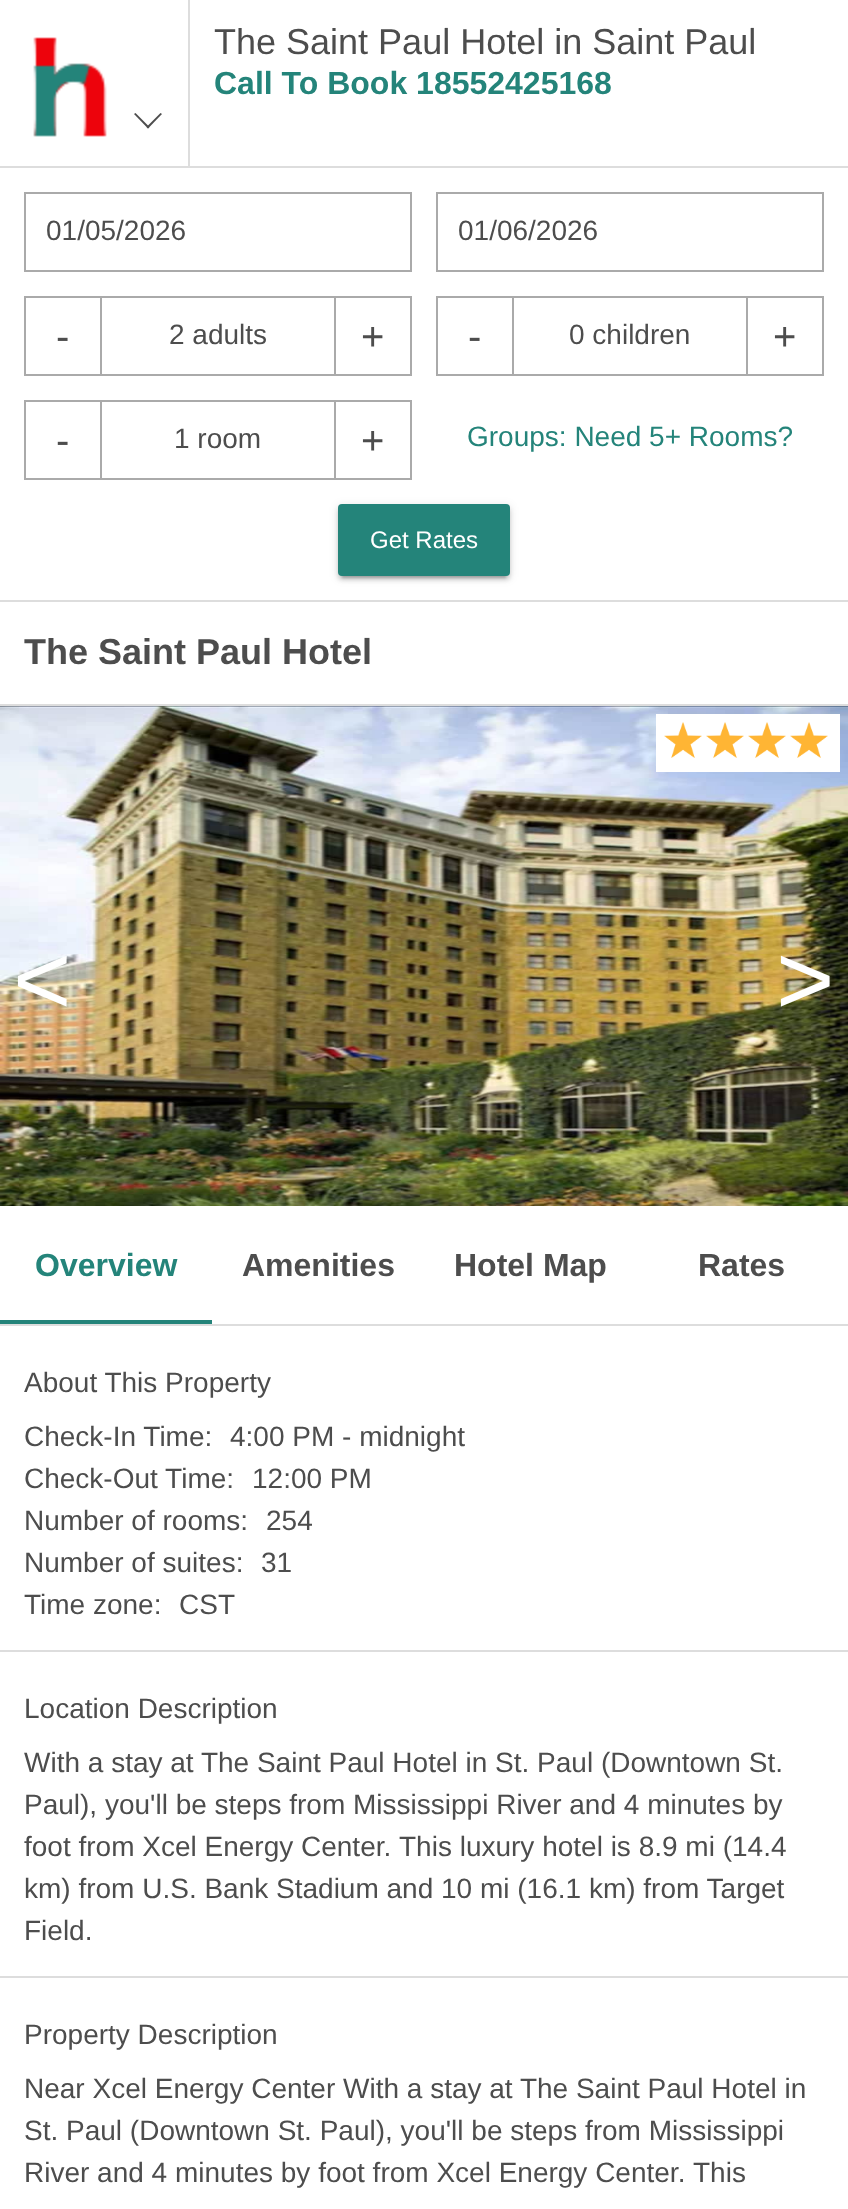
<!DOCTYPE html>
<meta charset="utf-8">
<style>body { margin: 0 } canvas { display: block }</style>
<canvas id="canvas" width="848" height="2209"></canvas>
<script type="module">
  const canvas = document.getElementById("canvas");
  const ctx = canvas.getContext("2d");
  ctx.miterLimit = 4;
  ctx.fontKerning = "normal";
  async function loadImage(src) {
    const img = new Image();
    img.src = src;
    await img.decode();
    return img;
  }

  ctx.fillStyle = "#ffffff";
  ctx.fillRect(0, 0, 848, 2209);
  ctx.fillStyle = "#dddddd";
  ctx.fillRect(0, 166, 848, 2);
  ctx.fillRect(188, 0, 2, 166);
  ctx.drawImage(await loadImage("img1.png"), 33, 37, 74, 100);
  ctx.fillStyle = "#4d4d4d";
  ctx.beginPath();
  ctx.moveTo(162, 114);
  ctx.lineTo(148, 128.5);
  ctx.lineTo(146.5, 127);
  ctx.lineTo(160.5, 113);
  ctx.closePath();
  ctx.fill();
  ctx.beginPath();
  ctx.moveTo(149.5, 127);
  ctx.lineTo(148, 128.5);
  ctx.lineTo(134, 114);
  ctx.lineTo(135.5, 113);
  ctx.closePath();
  ctx.fill();
  ctx.font = "36px Liberation Sans";
  ctx.fillText("The Saint Paul Hotel in Saint Paul", 214, 54);
  ctx.font = "bold 32px Liberation Sans";
  ctx.fillStyle = "#24847a";
  ctx.fillText("Call To Book 18552425168", 214, 94);
  ctx.fillStyle = "#dddddd";
  ctx.fillRect(0, 600, 848, 2);
  ctx.strokeStyle = "#aaaaaa";
  ctx.lineWidth = 2;
  ctx.strokeRect(25, 193, 386, 78);
  ctx.font = "28px Liberation Sans";
  ctx.fillStyle = "#4d4d4d";
  ctx.fillText("01/05/2026", 46, 240);
  ctx.strokeRect(437, 193, 386, 78);
  ctx.fillText("01/06/2026", 458, 240);
  ctx.strokeRect(25, 297, 76, 78);
  ctx.font = "40px Liberation Sans";
  ctx.fillText("-", 56, 350);
  ctx.fillStyle = "#aaaaaa";
  ctx.fillRect(102, 296, 232, 2);
  ctx.fillRect(102, 374, 232, 2);
  ctx.font = "28px Liberation Sans";
  ctx.fillStyle = "#4d4d4d";
  ctx.fillText("2 adults", 169, 344);
  ctx.strokeRect(335, 297, 76, 78);
  ctx.font = "40px Liberation Sans";
  ctx.fillText("+", 361, 350);
  ctx.strokeRect(437, 297, 76, 78);
  ctx.fillText("-", 468, 350);
  ctx.fillStyle = "#aaaaaa";
  ctx.fillRect(514, 296, 232, 2);
  ctx.fillRect(514, 374, 232, 2);
  ctx.font = "28px Liberation Sans";
  ctx.fillStyle = "#4d4d4d";
  ctx.fillText("0 children", 569, 344);
  ctx.strokeRect(747, 297, 76, 78);
  ctx.font = "40px Liberation Sans";
  ctx.fillText("+", 773, 350);
  ctx.strokeRect(25, 401, 76, 78);
  ctx.fillText("-", 56, 454);
  ctx.fillStyle = "#aaaaaa";
  ctx.fillRect(102, 400, 232, 2);
  ctx.fillRect(102, 478, 232, 2);
  ctx.font = "28px Liberation Sans";
  ctx.fillStyle = "#4d4d4d";
  ctx.fillText("1 room", 174, 448);
  ctx.strokeRect(335, 401, 76, 78);
  ctx.font = "40px Liberation Sans";
  ctx.fillText("+", 361, 454);
  ctx.font = "28px Liberation Sans";
  ctx.fillStyle = "#24847a";
  ctx.fillText("Groups: Need 5+ Rooms?", 467, 446);
  ctx.fillStyle = "rgba(0, 0, 0, 0.12)";
  ctx.filter = "blur(5px)";
  ctx.beginPath();
  ctx.roundRect(338, 506, 172, 72, 4);
  ctx.fill();
  ctx.filter = "none";
  ctx.fillStyle = "rgba(0, 0, 0, 0.2)";
  ctx.filter = "blur(1px)";
  ctx.beginPath();
  ctx.rect(342, 514, 164, 64);
  ctx.fill();
  ctx.filter = "none";
  ctx.fillStyle = "rgba(0, 0, 0, 0.14)";
  ctx.filter = "blur(2px)";
  ctx.beginPath();
  ctx.roundRect(338, 508, 172, 72, 4);
  ctx.fill();
  ctx.filter = "none";
  ctx.fillStyle = "#24847a";
  ctx.beginPath();
  ctx.roundRect(338, 504, 172, 72, 4);
  ctx.fill();
  ctx.font = "24px Liberation Sans";
  ctx.fillStyle = "#ffffff";
  ctx.fillText("Get Rates", 370, 548);
  ctx.fillStyle = "#dddddd";
  ctx.fillRect(0, 704, 848, 2);
  ctx.font = "bold 36px Liberation Sans";
  ctx.fillStyle = "#4d4d4d";
  ctx.fillText("The Saint Paul Hotel", 24, 664);
  ctx.drawImage(await loadImage("img4.png"), 0, 706, 848, 500);
  ctx.fillStyle = "#ffffff";
  ctx.fillRect(656, 714, 184, 58);
  ctx.drawImage(await loadImage("img2.png"), 664, 722, 38, 36);
  ctx.drawImage(await loadImage("img2.png"), 706, 722, 38, 36);
  ctx.drawImage(await loadImage("img2.png"), 748, 722, 38, 36);
  ctx.drawImage(await loadImage("img3.png"), 790, 722, 38, 36);
  ctx.font = "100px Liberation Sans";
  ctx.fillText("<", 13, 1014);
  ctx.fillText(">", 776, 1014);
  ctx.fillStyle = "#dddddd";
  ctx.fillRect(0, 1324, 848, 2);
  ctx.fillStyle = "#24847a";
  ctx.fillRect(0, 1320, 212, 4);
  ctx.font = "bold 32px Liberation Sans";
  ctx.fillText("Overview", 35, 1276);
  ctx.fillStyle = "#4d4d4d";
  ctx.fillText("Amenities", 242, 1276);
  ctx.fillText("Hotel Map", 454, 1276);
  ctx.fillText("Rates", 698, 1276);
  ctx.fillStyle = "#dddddd";
  ctx.fillRect(0, 1650, 848, 2);
  ctx.font = "28px Liberation Sans";
  ctx.fillStyle = "#4d4d4d";
  ctx.fillText("About This Property", 24, 1392);
  ctx.fillText("Check-In Time:", 24, 1446);
  ctx.fillText("4:00 PM - midnight", 230, 1446);
  ctx.fillText("Check-Out Time:", 24, 1488);
  ctx.fillText("12:00 PM", 252, 1488);
  ctx.fillText("Number of rooms:", 24, 1530);
  ctx.fillText("254", 266, 1530);
  ctx.fillText("Number of suites:", 24, 1572);
  ctx.fillText("31", 261, 1572);
  ctx.fillText("Time zone:", 24, 1614);
  ctx.fillText("CST", 179, 1614);
  ctx.fillStyle = "#dddddd";
  ctx.fillRect(0, 1976, 848, 2);
  ctx.fillStyle = "#4d4d4d";
  ctx.fillText("Location Description", 24, 1718);
  ctx.fillText("With a stay at The Saint Paul Hotel in St. Paul (Downtown St.", 24, 1772);
  ctx.fillText("Paul), you'll be steps from Mississippi River and 4 minutes by", 24, 1814);
  ctx.fillText("foot from Xcel Energy Center.", 24, 1856);
  ctx.fillText("This luxury hotel is 8.9 mi (14.4", 399, 1856);
  ctx.fillText("km) from U.S. Bank Stadium and 10 mi (16.1 km) from Target", 24, 1898);
  ctx.fillText("Field.", 24, 1940);
  ctx.fillText("Property Description", 24, 2044);
  ctx.fillText("Near Xcel Energy Center With a stay at The Saint Paul Hotel in", 24, 2098);
  ctx.fillText("St. Paul (Downtown St. Paul), you'll be steps from Mississippi", 24, 2140);
  ctx.fillText("River and 4 minutes by foot from Xcel Energy Center.", 24, 2182);
  ctx.fillText("This", 693, 2182);
</script>
